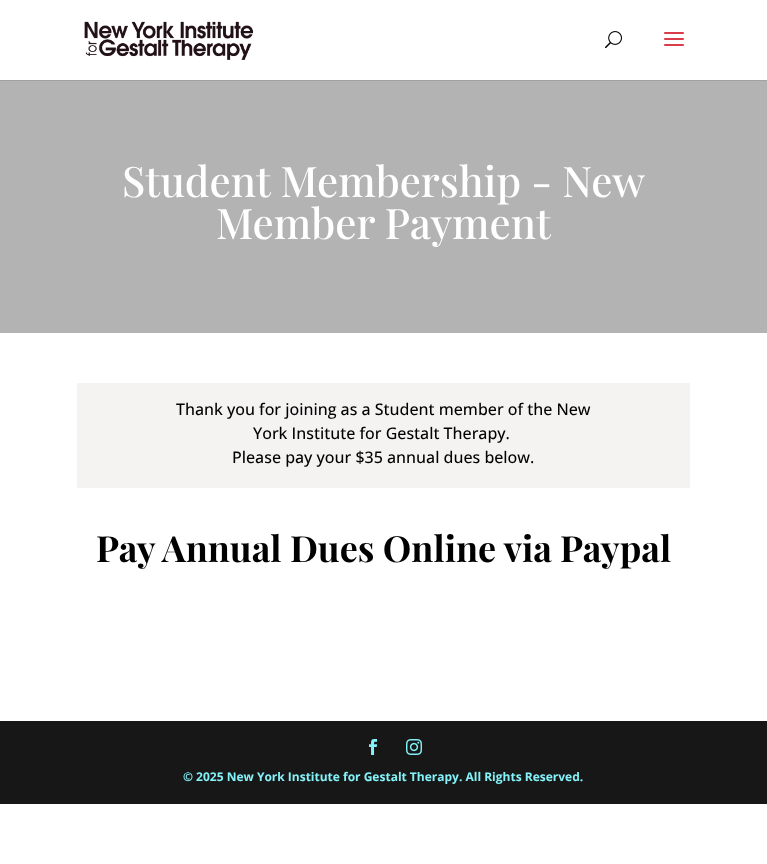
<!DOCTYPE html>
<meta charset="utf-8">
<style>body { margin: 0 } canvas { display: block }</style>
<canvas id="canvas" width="767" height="864"></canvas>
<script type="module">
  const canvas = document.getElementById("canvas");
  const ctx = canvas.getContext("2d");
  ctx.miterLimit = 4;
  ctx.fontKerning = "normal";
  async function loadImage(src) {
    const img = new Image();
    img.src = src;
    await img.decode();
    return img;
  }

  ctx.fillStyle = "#ffffff";
  ctx.fillRect(0, 0, 767, 864);
  ctx.fillStyle = "#a1a1a1";
  ctx.fillRect(0, 80, 767, 1);
  ctx.drawImage(await loadImage("img1.png"), 84, 21, 170, 39);
  ctx.drawImage(await loadImage("img2.png"), 605, 31, 17, 18);
  ctx.drawImage(await loadImage("img3.png"), 664, 32, 20, 14);
  ctx.fillStyle = "#b3b3b3";
  ctx.fillRect(0, 81, 767, 252);
  ctx.font = "500 42px Playfair Display";
  ctx.fillStyle = "#ffffff";
  ctx.fillText("Student Membership - New", 122, 197);
  ctx.fillText("Member Payment", 216, 239);
  ctx.fillStyle = "#f5f2f2";
  ctx.fillRect(77, 383, 613, 105);
  ctx.font = "500 16px Open Sans";
  ctx.fillStyle = "#000000";
  ctx.fillText("Thank you for joining as a Student member of the New", 176, 415);
  ctx.fillText("York Institute for Gestalt Therapy.", 253, 439);
  ctx.fillText("Please pay your $35 annual dues below.", 232, 463);
  ctx.font = "bold 36px Playfair Display";
  ctx.fillText("Pay Annual Dues Online via Paypal", 96, 562);
  ctx.fillStyle = "#171717";
  ctx.fillRect(0, 721, 767, 83);
  ctx.drawImage(await loadImage("img4.png"), 369, 739, 8, 16);
  ctx.drawImage(await loadImage("img5.png"), 406, 739, 16, 16);
  ctx.font = "bold 12px Open Sans";
  ctx.fillStyle = "#84f2f8";
  ctx.fillText("© 2025 New York Institute for Gestalt Therapy. All Rights Reserved.", 183, 781);
</script>
